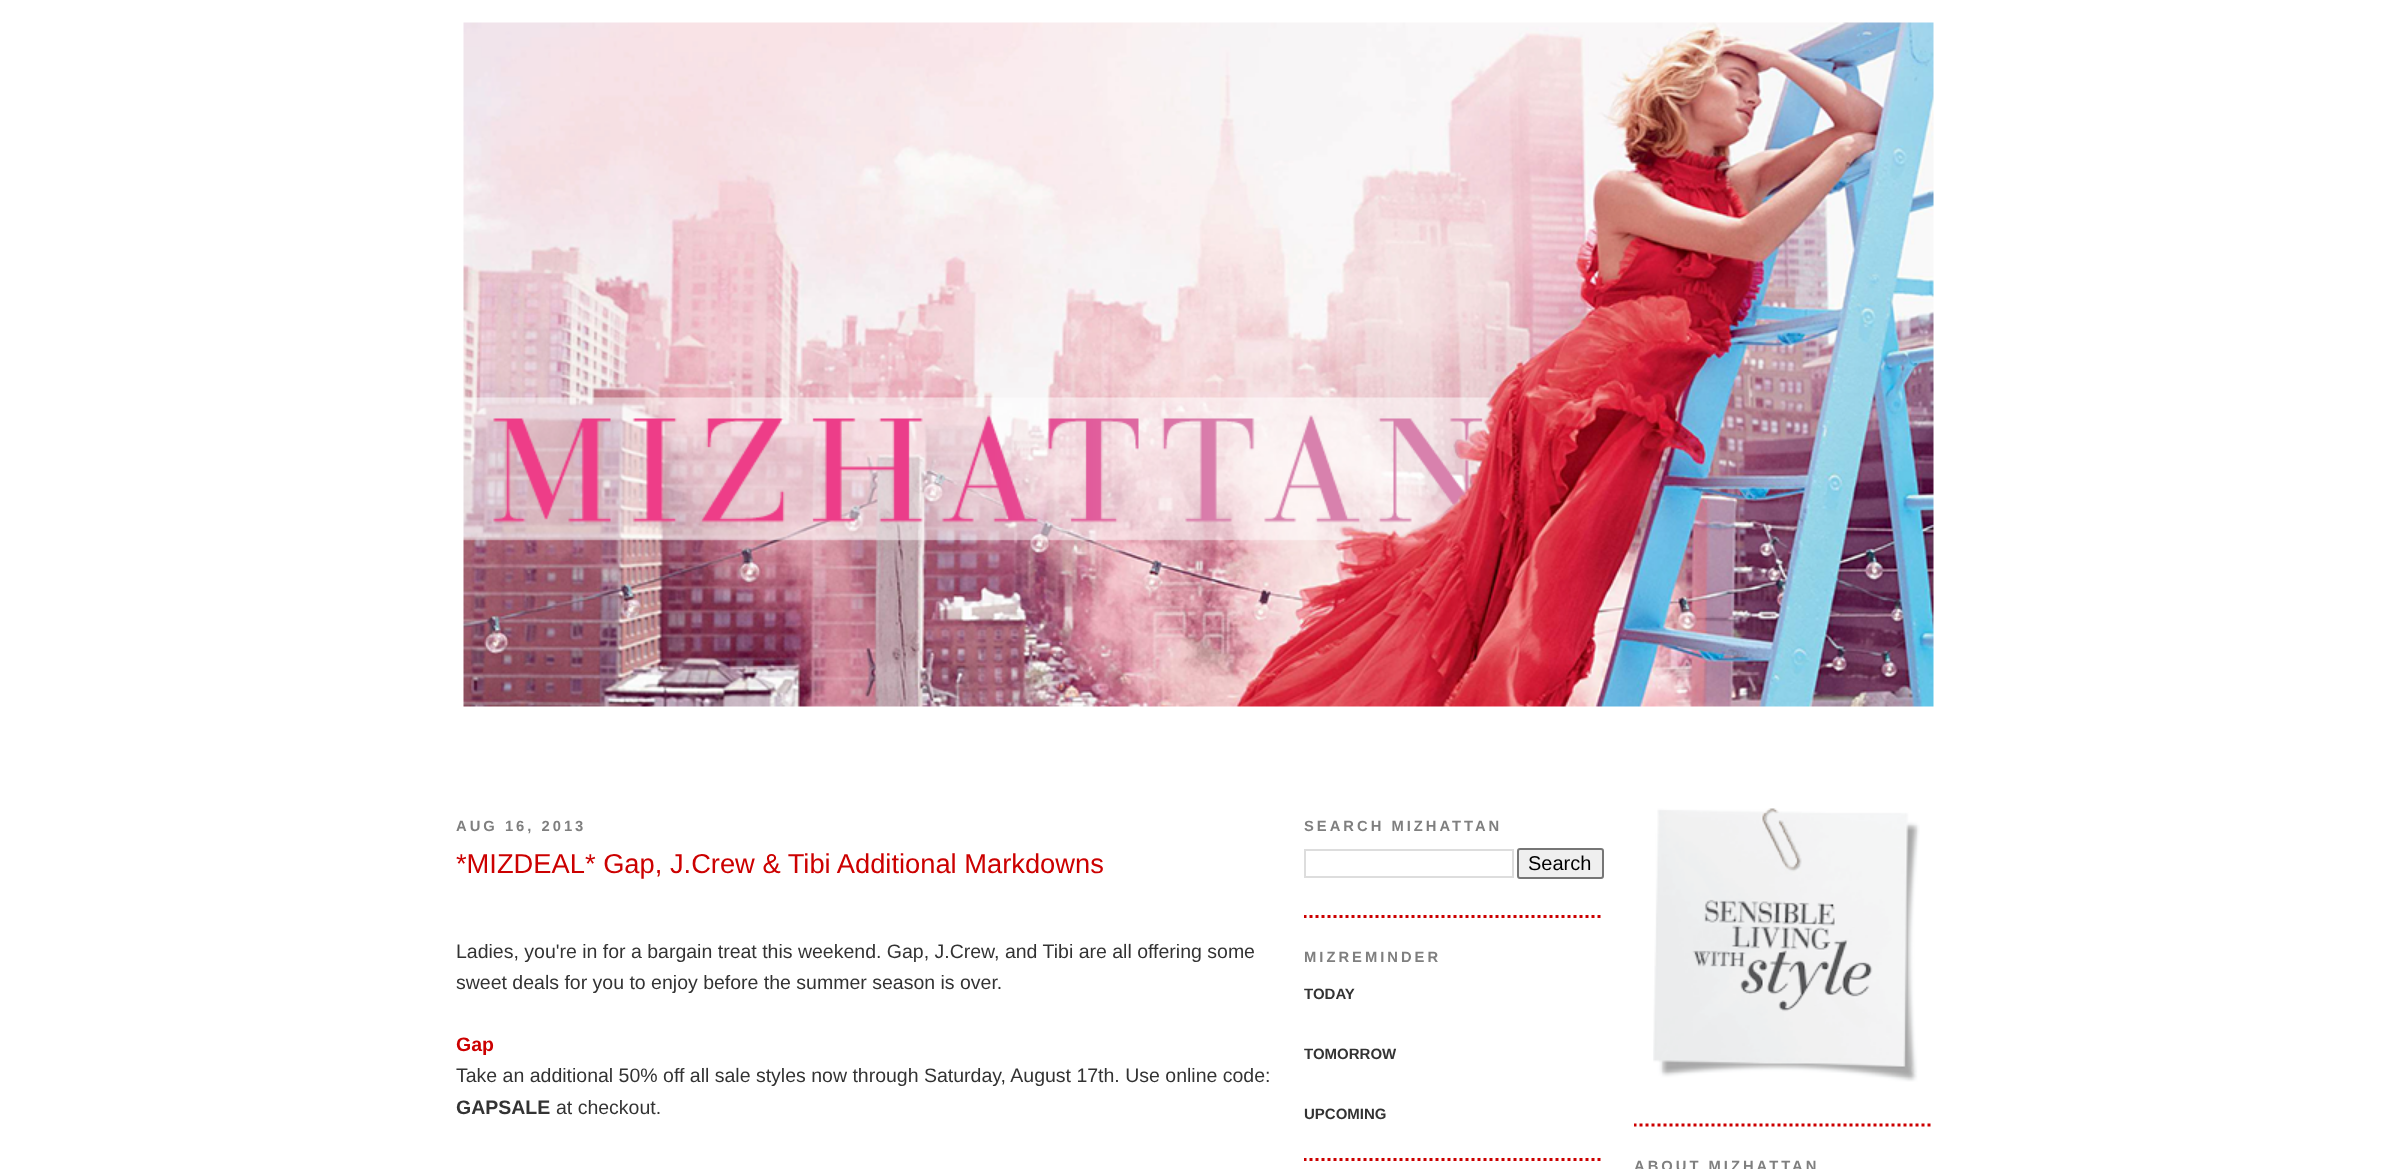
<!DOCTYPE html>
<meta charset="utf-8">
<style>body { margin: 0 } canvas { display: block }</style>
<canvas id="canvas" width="2396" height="1169"></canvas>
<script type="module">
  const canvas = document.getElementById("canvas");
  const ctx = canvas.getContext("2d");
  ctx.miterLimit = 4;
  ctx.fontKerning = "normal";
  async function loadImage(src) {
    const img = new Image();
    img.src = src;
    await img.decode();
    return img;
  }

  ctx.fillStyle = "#ffffff";
  ctx.fillRect(0, 0, 2396, 1169);
  ctx.drawImage(await loadImage("img1.png"), 463, 22, 1471, 685);
  ctx.letterSpacing = "3px";
  ctx.font = "bold 14.75px Liberation Sans";
  ctx.fillStyle = "#7f7f7f";
  ctx.fillText("AUG 16, 2013", 456, 831);
  ctx.letterSpacing = "0px";
  ctx.font = "27.3px Liberation Sans";
  ctx.fillStyle = "#cc0000";
  ctx.fillText("*MIZDEAL* Gap, J.Crew & Tibi Additional Markdowns", 456, 873);
  ctx.font = "19.5px Liberation Sans";
  ctx.fillStyle = "#333333";
  ctx.fillText("Ladies, you're in for a bargain treat this weekend. Gap, J.Crew, and Tibi are all offering some", 456, 958);
  ctx.fillText("sweet deals for you to enjoy before the summer season is over.", 456, 989);
  ctx.font = "bold 19.5px Liberation Sans";
  ctx.fillStyle = "#cc0000";
  ctx.fillText("Gap", 456, 1051);
  ctx.font = "19.5px Liberation Sans";
  ctx.fillStyle = "#333333";
  ctx.fillText("Take an additional 50% off all sale styles now through Saturday, August 17th. Use online code:", 456, 1082);
  ctx.font = "bold 19.5px Liberation Sans";
  ctx.fillText("GAPSALE", 456, 1114);
  ctx.font = "19.5px Liberation Sans";
  ctx.fillText("at checkout.", 556, 1114);
  ctx.save();
  ctx.beginPath();
  ctx.rect(1304, 794, 300, 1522);
  ctx.clip();
  ctx.beginPath();
  ctx.moveTo(1303.5, 916.5);
  ctx.lineTo(1603.5, 916.5);
  ctx.strokeStyle = "#cc0000";
  ctx.lineWidth = 3;
  ctx.setLineDash([3, 3]);
  ctx.stroke();
  ctx.restore();
  ctx.letterSpacing = "3px";
  ctx.font = "bold 14.75px Liberation Sans";
  ctx.fillStyle = "#7f7f7f";
  ctx.fillText("SEARCH MIZHATTAN", 1304, 831);
  ctx.strokeStyle = "#dddddd";
  ctx.lineWidth = 2;
  ctx.strokeRect(1305, 850, 208, 27);
  ctx.fillStyle = "#efefef";
  ctx.beginPath();
  ctx.roundRect(1518, 849, 85, 29, 2);
  ctx.fill();
  ctx.strokeStyle = "#767676";
  ctx.stroke();
  ctx.letterSpacing = "0px";
  ctx.font = "20px Liberation Sans";
  ctx.fillStyle = "#000000";
  ctx.fillText("Search", 1528, 870);
  ctx.save();
  ctx.beginPath();
  ctx.rect(1304, 794, 300, 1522);
  ctx.clip();
  ctx.beginPath();
  ctx.moveTo(1303.5, 1159.5);
  ctx.lineTo(1603.5, 1159.5);
  ctx.strokeStyle = "#cc0000";
  ctx.lineWidth = 3;
  ctx.setLineDash([3, 3]);
  ctx.stroke();
  ctx.restore();
  ctx.letterSpacing = "3px";
  ctx.font = "bold 14.75px Liberation Sans";
  ctx.fillStyle = "#7f7f7f";
  ctx.fillText("MIZREMINDER", 1304, 962);
  ctx.save();
  ctx.beginPath();
  ctx.rect(1304, 794, 300, 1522);
  ctx.clip();
  ctx.letterSpacing = "0px";
  ctx.font = "bold 15px Liberation Sans";
  ctx.fillStyle = "#333333";
  ctx.fillText("TODAY", 1304, 999);
  ctx.fillText("TOMORROW", 1304, 1059);
  ctx.restore();
  ctx.letterSpacing = "0px";
  ctx.font = "bold 15px Liberation Sans";
  ctx.fillStyle = "#333333";
  ctx.fillText("UPCOMING", 1304, 1119);
  ctx.save();
  ctx.beginPath();
  ctx.rect(1634, 794, 300, 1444);
  ctx.clip();
  ctx.beginPath();
  ctx.moveTo(1633.5, 1125);
  ctx.lineTo(1933.5, 1125);
  ctx.strokeStyle = "#cc0000";
  ctx.lineWidth = 3;
  ctx.setLineDash([3, 3]);
  ctx.stroke();
  ctx.restore();
  ctx.drawImage(await loadImage("img2.png"), 1653, 808, 267, 274);
  ctx.letterSpacing = "3px";
  ctx.font = "bold 14.75px Liberation Sans";
  ctx.fillStyle = "#7f7f7f";
  ctx.fillText("ABOUT MIZHATTAN", 1634, 1171);
</script>
